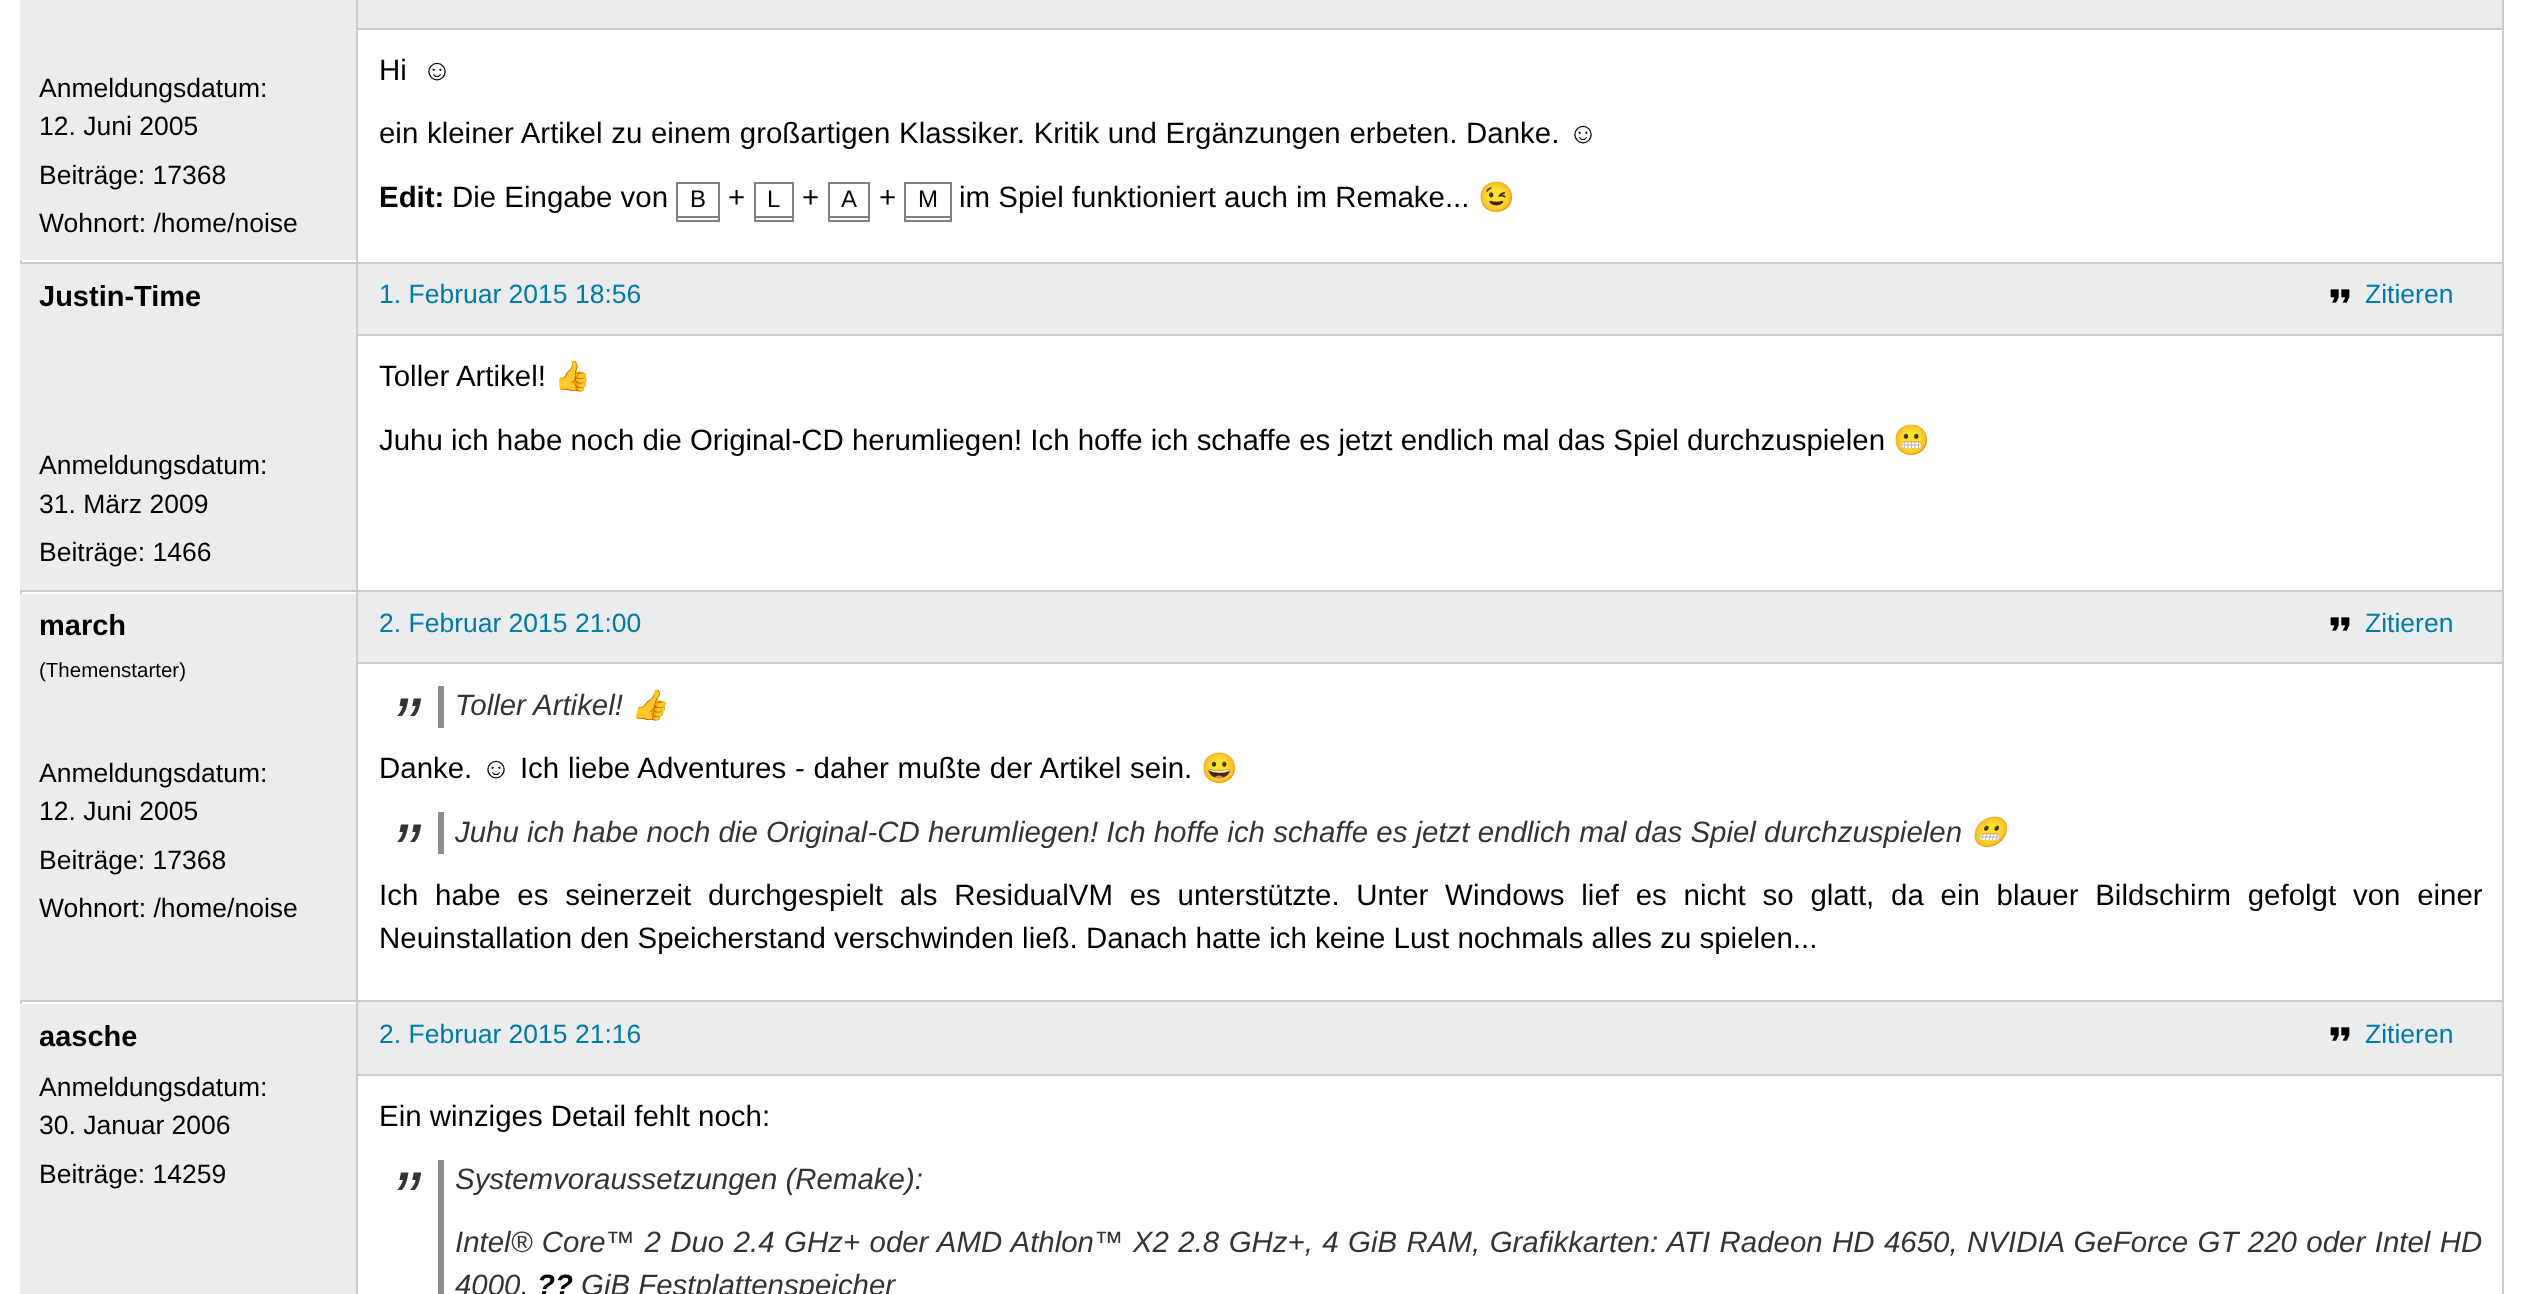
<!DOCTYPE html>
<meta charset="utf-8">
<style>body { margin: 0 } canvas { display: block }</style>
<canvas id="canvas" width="2524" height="1294"></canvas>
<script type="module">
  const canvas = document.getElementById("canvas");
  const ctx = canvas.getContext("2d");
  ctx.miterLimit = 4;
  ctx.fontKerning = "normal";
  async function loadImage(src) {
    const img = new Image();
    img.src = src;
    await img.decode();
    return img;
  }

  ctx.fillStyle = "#ffffff";
  ctx.fillRect(0, 0, 2524, 1294);
  ctx.fillStyle = "#cccccc";
  ctx.fillRect(2502, 0, 2, 1294);
  ctx.fillRect(20, 260, 2, 744);
  ctx.fillStyle = "#eaecee";
  ctx.fillRect(20, 0, 336, 260);
  ctx.font = "26.5px Liberation Sans";
  ctx.fillStyle = "#000000";
  ctx.fillText("Anmeldungsdatum:", 39, 97);
  ctx.fillText("12. Juni 2005", 39, 135);
  ctx.fillText("Beiträge: 17368", 39, 184);
  ctx.fillText("Wohnort: /home/noise", 39, 232);
  ctx.fillStyle = "#eaecee";
  ctx.fillRect(358, 0, 2144, 28);
  ctx.fillStyle = "#cccccc";
  ctx.fillRect(358, 28, 2144, 2);
  ctx.wordSpacing = "7px";
  ctx.font = "29.45px Liberation Sans";
  ctx.fillStyle = "#000000";
  ctx.fillText("Hi ☺", 379, 80);
  ctx.wordSpacing = "0.5px";
  ctx.fillText("ein kleiner Artikel zu einem großartigen Klassiker. Kritik und Ergänzungen erbeten. Danke. ☺", 379, 143);
  ctx.wordSpacing = "0px";
  ctx.font = "bold 29.45px Liberation Sans";
  ctx.fillText("Edit:", 379, 207);
  ctx.font = "29.45px Liberation Sans";
  ctx.fillText("Die Eingabe von", 452, 207);
  ctx.fillStyle = "#828282";
  ctx.fillRect(676, 218, 44, 4);
  ctx.fillStyle = "#ffffff";
  ctx.fillRect(678, 218, 40, 2);
  ctx.strokeStyle = "#7d8186";
  ctx.lineWidth = 2;
  ctx.strokeRect(677, 183, 42, 34);
  ctx.font = "24px Liberation Sans";
  ctx.fillStyle = "#000000";
  ctx.fillText("B", 690, 207);
  ctx.font = "29.45px Liberation Sans";
  ctx.fillText("+", 728, 207);
  ctx.fillStyle = "#828282";
  ctx.fillRect(754, 218, 40, 4);
  ctx.fillStyle = "#ffffff";
  ctx.fillRect(756, 218, 36, 2);
  ctx.strokeRect(755, 183, 38, 34);
  ctx.font = "24px Liberation Sans";
  ctx.fillStyle = "#000000";
  ctx.fillText("L", 767, 207);
  ctx.font = "29.45px Liberation Sans";
  ctx.fillText("+", 802, 207);
  ctx.fillStyle = "#828282";
  ctx.fillRect(828, 218, 42, 4);
  ctx.fillStyle = "#ffffff";
  ctx.fillRect(830, 218, 38, 2);
  ctx.strokeRect(829, 183, 40, 34);
  ctx.font = "24px Liberation Sans";
  ctx.fillStyle = "#000000";
  ctx.fillText("A", 841, 207);
  ctx.font = "29.45px Liberation Sans";
  ctx.fillText("+", 879, 207);
  ctx.fillStyle = "#828282";
  ctx.fillRect(904, 218, 48, 4);
  ctx.fillStyle = "#ffffff";
  ctx.fillRect(906, 218, 44, 2);
  ctx.strokeRect(905, 183, 46, 34);
  ctx.font = "24px Liberation Sans";
  ctx.fillStyle = "#000000";
  ctx.fillText("M", 918, 207);
  ctx.font = "29.45px Liberation Sans";
  ctx.fillText("im Spiel funktioniert auch im Remake...", 959, 207);
  ctx.font = "29.45px Noto Color Emoji";
  ctx.fillText("😉", 1478, 207);
  ctx.fillStyle = "#cccccc";
  ctx.fillRect(20, 262, 2484, 2);
  ctx.fillRect(20, 590, 2484, 2);
  ctx.fillRect(20, 1000, 2484, 2);
  ctx.fillRect(356, 1000, 2, 294);
  ctx.fillRect(356, 590, 2, 412);
  ctx.fillRect(356, 0, 2, 592);
  ctx.fillStyle = "#eaecee";
  ctx.fillRect(20, 264, 336, 326);
  ctx.font = "bold 29px Liberation Sans";
  ctx.fillStyle = "#000000";
  ctx.fillText("Justin-Time", 39, 306);
  ctx.font = "26.5px Liberation Sans";
  ctx.fillText("Anmeldungsdatum:", 39, 474);
  ctx.fillText("31. März 2009", 39, 513);
  ctx.fillText("Beiträge: 1466", 39, 561);
  ctx.fillStyle = "#eaecee";
  ctx.fillRect(358, 264, 2144, 70);
  ctx.fillStyle = "#cccccc";
  ctx.fillRect(358, 334, 2144, 2);
  ctx.fillStyle = "#007aa6";
  ctx.fillText("1. Februar 2015 18:56", 379, 303);
  ctx.drawImage(await loadImage("img1.png"), 2330, 289, 20, 14);
  ctx.fillText("Zitieren", 2365, 303);
  ctx.font = "29.45px Liberation Sans";
  ctx.fillStyle = "#000000";
  ctx.fillText("Toller Artikel!", 379, 386);
  ctx.font = "29.45px Noto Color Emoji";
  ctx.fillText("👍", 554, 386);
  ctx.font = "29.45px Liberation Sans";
  ctx.fillText("Juhu ich habe noch die Original-CD herumliegen! Ich hoffe ich schaffe es jetzt endlich mal das Spiel durchzuspielen", 379, 450);
  ctx.font = "29.45px Noto Color Emoji";
  ctx.fillText("😬", 1893, 450);
  ctx.fillStyle = "#eaecee";
  ctx.fillRect(20, 594, 336, 406);
  ctx.font = "bold 29px Liberation Sans";
  ctx.fillStyle = "#000000";
  ctx.fillText("march", 39, 635);
  ctx.font = "20.5px Liberation Sans";
  ctx.fillText("(Themenstarter)", 39, 677);
  ctx.font = "26.5px Liberation Sans";
  ctx.fillText("Anmeldungsdatum:", 39, 782);
  ctx.fillText("12. Juni 2005", 39, 820);
  ctx.fillText("Beiträge: 17368", 39, 869);
  ctx.fillText("Wohnort: /home/noise", 39, 917);
  ctx.fillStyle = "#eaecee";
  ctx.fillRect(358, 592, 2144, 70);
  ctx.fillStyle = "#cccccc";
  ctx.fillRect(358, 662, 2144, 2);
  ctx.fillStyle = "#007aa6";
  ctx.fillText("2. Februar 2015 21:00", 379, 632);
  ctx.drawImage(await loadImage("img1.png"), 2330, 617, 20, 14);
  ctx.fillText("Zitieren", 2365, 632);
  ctx.fillStyle = "#8c8c8c";
  ctx.fillRect(438, 686, 6, 42);
  ctx.font = "italic 79px Liberation Sans";
  ctx.fillStyle = "#333333";
  ctx.fillText("„", 400, 706);
  ctx.font = "italic 29.45px Liberation Sans";
  ctx.fillText("Toller Artikel!", 455, 715);
  ctx.font = "italic 29.45px Noto Color Emoji";
  ctx.fillText("👍", 631, 715);
  ctx.wordSpacing = "0.6px";
  ctx.font = "29.45px Liberation Sans";
  ctx.fillStyle = "#000000";
  ctx.fillText("Danke. ☺ Ich liebe Adventures - daher mußte der Artikel sein.", 379, 778);
  ctx.wordSpacing = "0px";
  ctx.font = "29.45px Noto Color Emoji";
  ctx.fillText("😀", 1201, 778);
  ctx.fillStyle = "#8c8c8c";
  ctx.fillRect(438, 812, 6, 42);
  ctx.font = "italic 79px Liberation Sans";
  ctx.fillStyle = "#333333";
  ctx.fillText("„", 400, 832);
  ctx.font = "italic 29.45px Liberation Sans";
  ctx.fillText("Juhu ich habe noch die Original-CD herumliegen! Ich hoffe ich schaffe es jetzt endlich mal das Spiel durchzuspielen", 455, 842);
  ctx.font = "italic 29.45px Noto Color Emoji";
  ctx.fillText("😬", 1970, 842);
  ctx.wordSpacing = "8.6px";
  ctx.font = "29.45px Liberation Sans";
  ctx.fillStyle = "#000000";
  ctx.fillText("Ich habe es seinerzeit durchgespielt als ResidualVM es unterstützte. Unter Windows lief es nicht so glatt, da ein blauer Bildschirm gefolgt von einer", 379, 905);
  ctx.wordSpacing = "0px";
  ctx.fillText("Neuinstallation den Speicherstand verschwinden ließ. Danach hatte ich keine Lust nochmals alles zu spielen...", 379, 948);
  ctx.fillStyle = "#eaecee";
  ctx.fillRect(20, 1004, 336, 290);
  ctx.font = "bold 29px Liberation Sans";
  ctx.fillStyle = "#000000";
  ctx.fillText("aasche", 39, 1046);
  ctx.font = "26.5px Liberation Sans";
  ctx.fillText("Anmeldungsdatum:", 39, 1096);
  ctx.fillText("30. Januar 2006", 39, 1134);
  ctx.fillText("Beiträge: 14259", 39, 1183);
  ctx.fillStyle = "#eaecee";
  ctx.fillRect(358, 1002, 2144, 72);
  ctx.fillStyle = "#cccccc";
  ctx.fillRect(358, 1074, 2144, 2);
  ctx.fillStyle = "#007aa6";
  ctx.fillText("2. Februar 2015 21:16", 379, 1043);
  ctx.drawImage(await loadImage("img1.png"), 2330, 1027, 20, 14);
  ctx.fillText("Zitieren", 2365, 1043);
  ctx.font = "29.45px Liberation Sans";
  ctx.fillStyle = "#000000";
  ctx.fillText("Ein winziges Detail fehlt noch:", 379, 1126);
  ctx.fillStyle = "#8c8c8c";
  ctx.fillRect(438, 1160, 6, 134);
  ctx.font = "italic 79px Liberation Sans";
  ctx.fillStyle = "#333333";
  ctx.fillText("„", 400, 1180);
  ctx.font = "italic 29.45px Liberation Sans";
  ctx.fillText("Systemvoraussetzungen (Remake):", 455, 1189);
  ctx.wordSpacing = "1.25px";
  ctx.fillText("Intel® Core™ 2 Duo 2.4 GHz+ oder AMD Athlon™ X2 2.8 GHz+, 4 GiB RAM, Grafikkarten: ATI Radeon HD 4650, NVIDIA GeForce GT 220 oder Intel HD", 455, 1252);
  ctx.wordSpacing = "0px";
  ctx.fillText("4000,", 455, 1295);
  ctx.font = "italic bold 29.45px Liberation Sans";
  ctx.fillStyle = "#000000";
  ctx.fillText("??", 537, 1295);
  ctx.font = "italic 29.45px Liberation Sans";
  ctx.fillStyle = "#333333";
  ctx.fillText("GiB Festplattenspeicher", 581, 1295);
</script>
